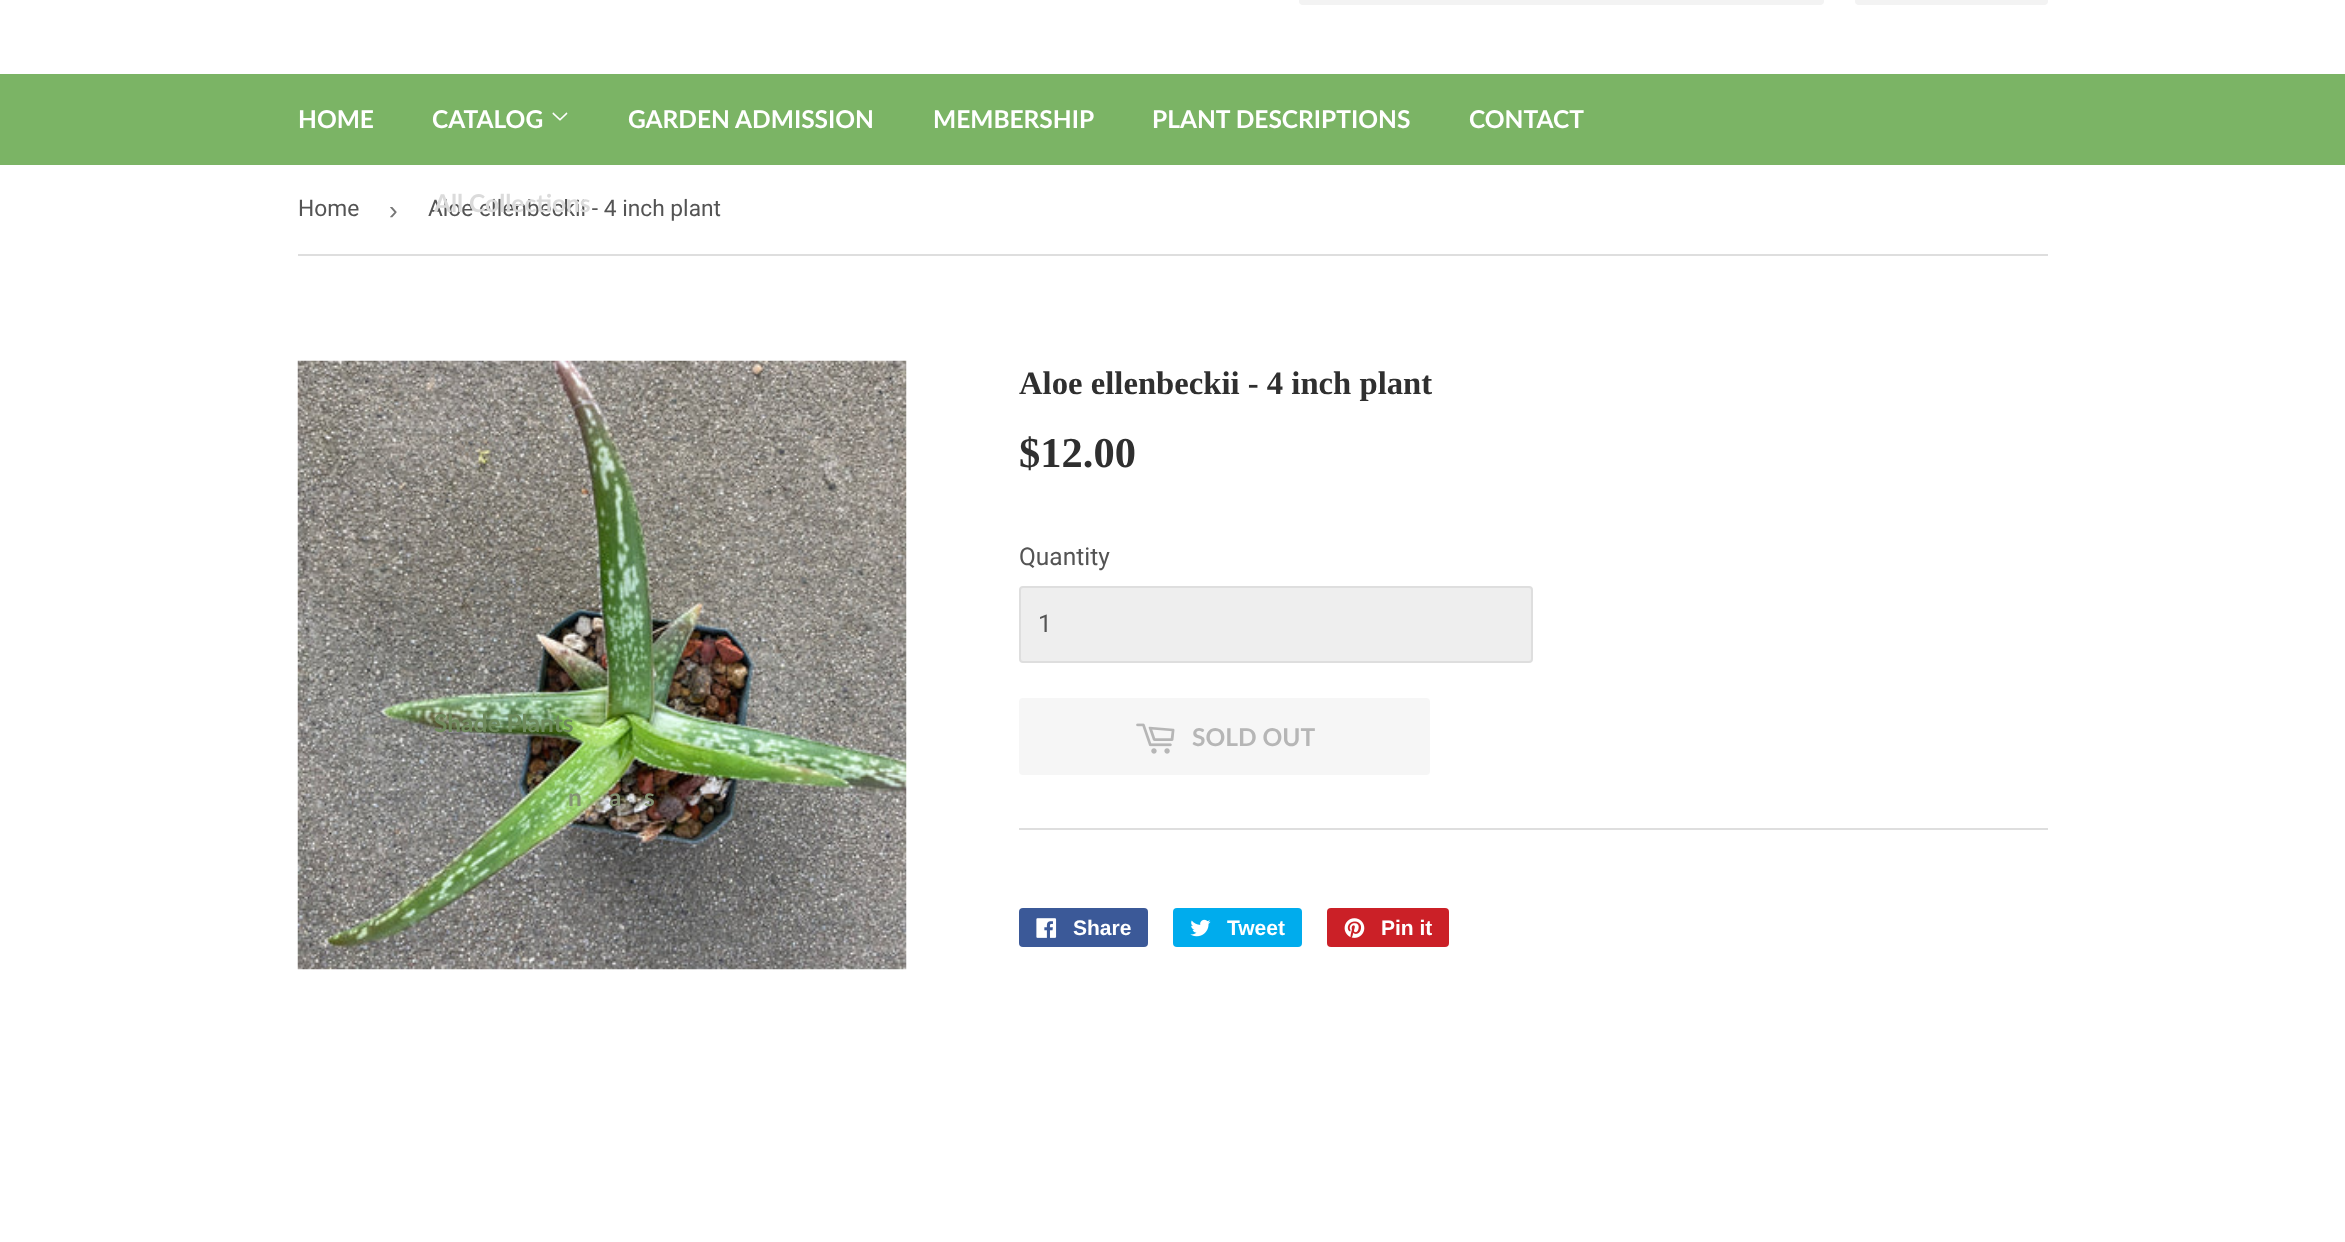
<!DOCTYPE html>
<meta charset="utf-8">
<style>body { margin: 0 } canvas { display: block }</style>
<canvas id="canvas" width="2345" height="1242"></canvas>
<script type="module">
  const canvas = document.getElementById("canvas");
  const ctx = canvas.getContext("2d");
  ctx.miterLimit = 4;
  ctx.fontKerning = "normal";
  async function loadImage(src) {
    const img = new Image();
    img.src = src;
    await img.decode();
    return img;
  }

  ctx.fillStyle = "#ffffff";
  ctx.fillRect(0, 0, 2345, 1242);
  ctx.fillStyle = "#f3f3f3";
  ctx.beginPath();
  ctx.roundRect(1299, -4, 525, 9, 4);
  ctx.fill();
  ctx.beginPath();
  ctx.roundRect(1855, -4, 193, 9, 4);
  ctx.fill();
  ctx.fillStyle = "#7bb465";
  ctx.fillRect(0, 74, 2345, 91);
  ctx.font = "bold 24.5px Lato";
  ctx.fillStyle = "#ffffff";
  ctx.fillText("HOME", 298, 128);
  ctx.fillText("CATALOG", 432, 128);
  ctx.drawImage(await loadImage("img1.png"), 552, 112, 16, 9);
  ctx.font = "22.75px Roboto";
  ctx.fillStyle = "#545454";
  ctx.fillText("Aloe ellenbeckii - 4 inch plant", 428, 216);
  ctx.font = "bold 24.5px Lato";
  ctx.fillStyle = "#dbdbdb";
  ctx.fillText("All Collections", 434, 212);
  ctx.drawImage(await loadImage("img2.png"), 297, 360, 610, 610);
  ctx.fillStyle = "#6f8a5d";
  ctx.fillText("Shade Plants", 434, 732);
  ctx.fillStyle = "#849274";
  ctx.fillText("n", 568, 806);
  ctx.fillText("a", 609, 806);
  ctx.fillText("s", 644, 806);
  ctx.fillStyle = "#ffffff";
  ctx.fillText("GARDEN ADMISSION", 628, 128);
  ctx.fillText("MEMBERSHIP", 933, 128);
  ctx.fillText("PLANT DESCRIPTIONS", 1152, 128);
  ctx.fillText("CONTACT", 1469, 128);
  ctx.fillStyle = "#dedede";
  ctx.fillRect(298, 254, 1750, 2);
  ctx.font = "22.75px Roboto";
  ctx.fillStyle = "#545454";
  ctx.fillText("Home", 298, 216);
  ctx.font = "26px Liberation Sans";
  ctx.fillStyle = "#767676";
  ctx.fillText("›", 389, 219);
  ctx.font = "bold 32.7px Liberation Serif";
  ctx.fillStyle = "#2f2f2f";
  ctx.fillText("Aloe ellenbeckii - 4 inch plant", 1019, 394);
  ctx.font = "bold 42.5px Liberation Serif";
  ctx.fillText("$12.00", 1019, 467);
  ctx.font = "24.5px Roboto";
  ctx.fillStyle = "#545454";
  ctx.fillText("Quantity", 1019, 565);
  ctx.fillStyle = "#eeeeee";
  ctx.beginPath();
  ctx.roundRect(1020, 587, 512, 75, 3);
  ctx.fill();
  ctx.strokeStyle = "#dedede";
  ctx.lineWidth = 2;
  ctx.stroke();
  ctx.fillStyle = "#545454";
  ctx.fillText("1", 1038, 632);
  ctx.fillStyle = "#f6f6f6";
  ctx.beginPath();
  ctx.roundRect(1019, 698, 411, 77, 4);
  ctx.fill();
  ctx.drawImage(await loadImage("img3.png"), 1136, 723, 39, 31);
  ctx.font = "bold 24.5px Lato";
  ctx.fillStyle = "#b6b6b6";
  ctx.fillText("SOLD OUT", 1192, 746);
  ctx.fillStyle = "#dedede";
  ctx.fillRect(1019, 828, 1029, 2);
  ctx.fillStyle = "#3b5998";
  ctx.beginPath();
  ctx.roundRect(1019, 908, 129, 39, 4);
  ctx.fill();
  ctx.drawImage(await loadImage("img4.png"), 1036, 918, 21, 20);
  ctx.font = "bold 21px Liberation Sans";
  ctx.fillStyle = "#ffffff";
  ctx.fillText("Share", 1073, 935);
  ctx.fillStyle = "#00aced";
  ctx.beginPath();
  ctx.roundRect(1173, 908, 129, 39, 4);
  ctx.fill();
  ctx.drawImage(await loadImage("img5.png"), 1190, 919, 21, 18);
  ctx.fillStyle = "#ffffff";
  ctx.fillText("Tweet", 1227, 935);
  ctx.fillStyle = "#cb2027";
  ctx.beginPath();
  ctx.roundRect(1327, 908, 122, 39, 4);
  ctx.fill();
  ctx.drawImage(await loadImage("img6.png"), 1344, 918, 21, 20);
  ctx.fillStyle = "#ffffff";
  ctx.fillText("Pin it", 1381, 935);
</script>
